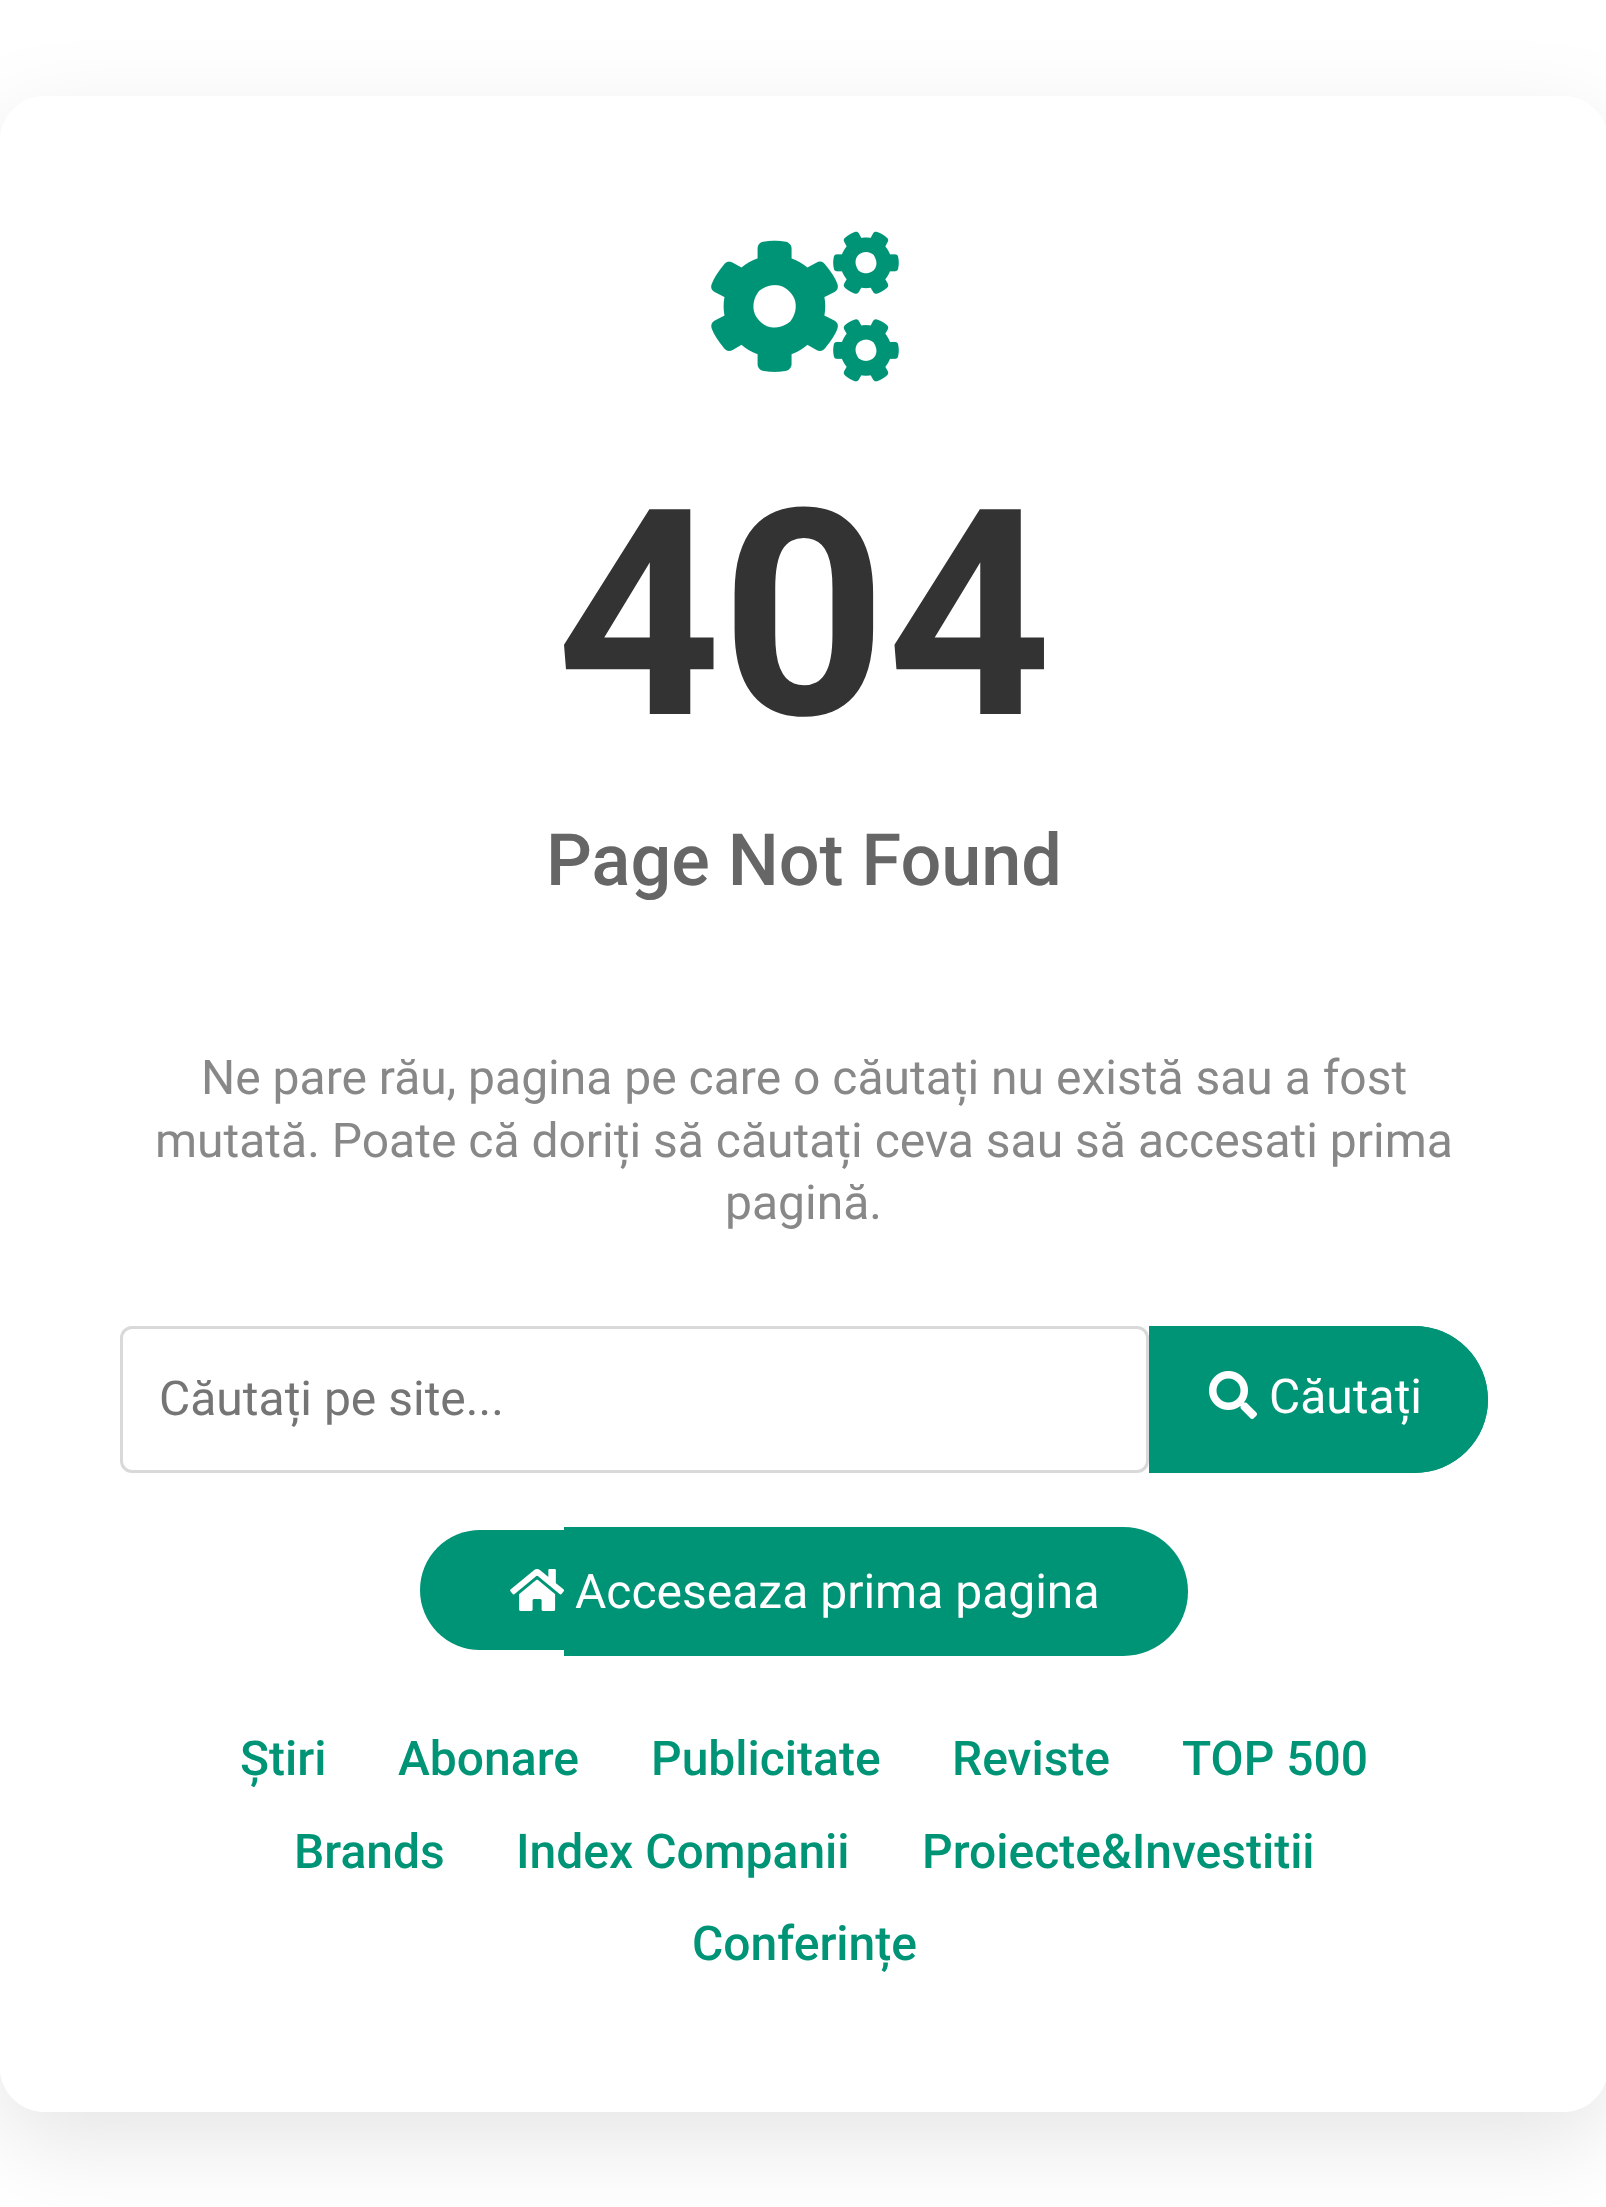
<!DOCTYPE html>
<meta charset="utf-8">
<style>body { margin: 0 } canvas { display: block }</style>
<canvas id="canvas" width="1606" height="2207"></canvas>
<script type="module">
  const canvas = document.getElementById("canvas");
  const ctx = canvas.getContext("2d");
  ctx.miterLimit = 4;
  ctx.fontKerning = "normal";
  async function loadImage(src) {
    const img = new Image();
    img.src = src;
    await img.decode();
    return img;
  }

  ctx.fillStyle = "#ffffff";
  ctx.fillRect(0, 0, 1606, 2207);
  ctx.save();
  ctx.beginPath();
  ctx.moveTo(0, 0);
  ctx.lineTo(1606, 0);
  ctx.lineTo(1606, 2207);
  ctx.lineTo(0, 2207);
  ctx.closePath();
  ctx.moveTo(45, 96);
  ctx.lineTo(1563, 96);
  ctx.bezierCurveTo(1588, 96, 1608, 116, 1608, 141);
  ctx.lineTo(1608, 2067);
  ctx.bezierCurveTo(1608, 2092, 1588, 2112, 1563, 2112);
  ctx.lineTo(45, 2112);
  ctx.bezierCurveTo(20, 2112, 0, 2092, 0, 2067);
  ctx.lineTo(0, 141);
  ctx.bezierCurveTo(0, 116, 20, 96, 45, 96);
  ctx.closePath();
  ctx.clip("evenodd");
  ctx.fillStyle = "rgba(0, 0, 0, 0.1)";
  ctx.filter = "blur(45px)";
  ctx.beginPath();
  ctx.roundRect(0, 126, 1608, 2016, 45);
  ctx.fill();
  ctx.filter = "none";
  ctx.restore();
  ctx.fillStyle = "rgba(255, 255, 255, 0.9)";
  ctx.beginPath();
  ctx.roundRect(0, 96, 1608, 2016, 45);
  ctx.fill();
  ctx.drawImage(await loadImage("img1.png"), 711, 231, 188, 151);
  ctx.font = "bold 288px Roboto";
  ctx.fillStyle = "#333333";
  ctx.fillText("404", 556, 714);
  ctx.font = "500 72px Roboto";
  ctx.fillStyle = "#666666";
  ctx.fillText("Page Not Found", 546, 885);
  ctx.font = "48px Roboto";
  ctx.fillStyle = "#888888";
  ctx.fillText("Ne pare rău, pagina pe care o căutați nu există sau a fost", 201, 1094);
  ctx.fillText("mutată. Poate că doriți să căutați ceva sau să accesati prima", 155, 1157);
  ctx.fillText("pagină.", 725, 1219);
  ctx.beginPath();
  ctx.roundRect(121.5, 1327.5, 1026, 144, 10.5);
  ctx.strokeStyle = "#d9d9d9";
  ctx.lineWidth = 3;
  ctx.stroke();
  ctx.fillStyle = "#757575";
  ctx.fillText("Căutați pe site...", 159, 1415);
  ctx.fillStyle = "#009476";
  ctx.beginPath();
  ctx.roundRect(1149, 1326, 339, 147, [0, 73.5, 73.5, 0]);
  ctx.fill();
  ctx.beginPath();
  ctx.moveTo(1149, 1326);
  ctx.lineTo(1414, 1326);
  ctx.bezierCurveTo(1455, 1326, 1488, 1359, 1488, 1400);
  ctx.bezierCurveTo(1488, 1440, 1455, 1473, 1414, 1473);
  ctx.lineTo(1149, 1473);
  ctx.closePath();
  ctx.moveTo(1149, 1332);
  ctx.lineTo(1414, 1332);
  ctx.bezierCurveTo(1452, 1332, 1482, 1362, 1482, 1400);
  ctx.bezierCurveTo(1482, 1437, 1452, 1467, 1414, 1467);
  ctx.lineTo(1149, 1467);
  ctx.closePath();
  ctx.fill("evenodd");
  ctx.drawImage(await loadImage("img2.png"), 1209, 1371, 48, 48);
  ctx.fillStyle = "#ffffff";
  ctx.fillText("Căutați", 1269, 1413);
  ctx.fillStyle = "#009476";
  ctx.beginPath();
  ctx.roundRect(420, 1530, 144, 120, [60, 0, 0, 60]);
  ctx.fill();
  ctx.beginPath();
  ctx.roundRect(564, 1527, 624, 129, [0, 64.5, 64.5, 0]);
  ctx.fill();
  ctx.drawImage(await loadImage("img3.png"), 510, 1569, 55, 42);
  ctx.fillStyle = "#ffffff";
  ctx.fillText("Acceseaza prima pagina", 575, 1608);
  ctx.font = "500 48px Roboto";
  ctx.fillStyle = "#009476";
  ctx.fillText("Știri", 240, 1775);
  ctx.fillText("Abonare", 398, 1775);
  ctx.fillText("Publicitate", 651, 1775);
  ctx.fillText("Reviste", 952, 1775);
  ctx.fillText("TOP 500", 1182, 1775);
  ctx.fillText("Brands", 294, 1868);
  ctx.fillText("Index Companii", 516, 1868);
  ctx.fillText("Proiecte&Investitii", 922, 1868);
  ctx.fillText("Conferințe", 692, 1960);
</script>
